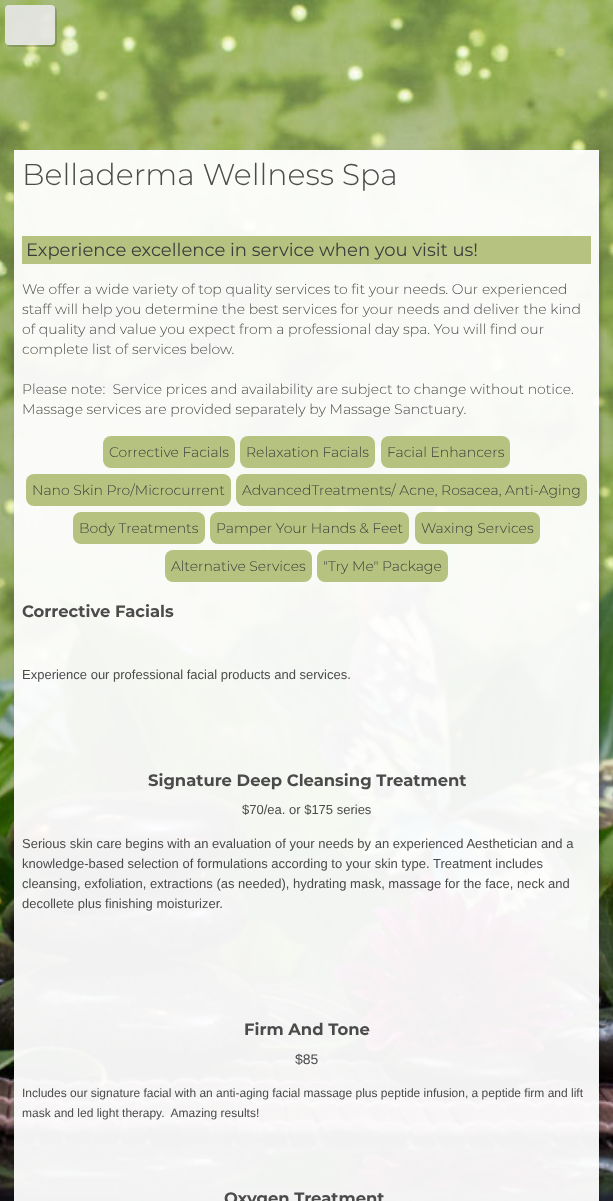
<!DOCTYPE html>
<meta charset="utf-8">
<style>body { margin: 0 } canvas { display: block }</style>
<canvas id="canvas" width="613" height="1201"></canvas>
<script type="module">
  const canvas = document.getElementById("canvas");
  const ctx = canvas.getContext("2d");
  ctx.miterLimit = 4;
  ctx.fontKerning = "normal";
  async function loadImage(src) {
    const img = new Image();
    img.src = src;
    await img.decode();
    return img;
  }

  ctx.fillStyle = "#ffffff";
  ctx.fillRect(0, 0, 613, 1201);
  ctx.drawImage(await loadImage("img1.png"), 0, 0, 613, 1201);
  ctx.fillStyle = "rgba(0, 0, 0, 0.15)";
  ctx.beginPath();
  ctx.moveTo(7, 45);
  ctx.bezierCurveTo(8, 46, 9, 47, 11, 47);
  ctx.lineTo(53, 47);
  ctx.bezierCurveTo(55, 47, 57, 45, 57, 43);
  ctx.lineTo(57, 11);
  ctx.bezierCurveTo(57, 9, 56, 8, 55, 7);
  ctx.lineTo(55, 30);
  ctx.bezierCurveTo(55, 44, 58, 45, 44, 45);
  ctx.closePath();
  ctx.fill();
  ctx.fillStyle = "rgba(232, 232, 232, 0.9)";
  ctx.beginPath();
  ctx.roundRect(5, 5, 50, 40, 4);
  ctx.fill();
  ctx.save();
  ctx.beginPath();
  ctx.moveTo(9, 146);
  ctx.lineTo(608, 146);
  ctx.lineTo(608, 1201);
  ctx.lineTo(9, 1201);
  ctx.closePath();
  ctx.moveTo(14, 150);
  ctx.lineTo(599, 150);
  ctx.lineTo(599, 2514);
  ctx.lineTo(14, 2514);
  ctx.closePath();
  ctx.clip("evenodd");
  ctx.fillStyle = "rgba(0, 0, 0, 0.2)";
  ctx.filter = "blur(2px)";
  ctx.beginPath();
  ctx.rect(16, 153, 585, 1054);
  ctx.fill();
  ctx.filter = "none";
  ctx.restore();
  ctx.fillStyle = "rgba(255, 255, 255, 0.95)";
  ctx.fillRect(14, 150, 585, 1051);
  ctx.font = "300 30px Montserrat";
  ctx.fillStyle = "#4b4b4b";
  ctx.fillText("Belladerma Wellness Spa", 22, 185);
  ctx.fillStyle = "#b6c380";
  ctx.fillRect(22, 236, 569, 28);
  ctx.font = "18px Montserrat";
  ctx.fillStyle = "#3c3c3c";
  ctx.fillText("Experience excellence in service when you visit us!", 26, 256);
  ctx.font = "300 14px Montserrat";
  ctx.fillStyle = "#4b4b4b";
  ctx.fillText("We offer a wide variety of top quality services to fit your needs. Our experienced", 22, 294);
  ctx.fillText("staff will help you determine the best services for your needs and deliver the kind", 22, 314);
  ctx.fillText("of quality and value you expect from a professional day spa. You will find our", 22, 334);
  ctx.fillText("complete list of services below.", 22, 354);
  ctx.fillText("Please note:  Service prices and availability are subject to change without notice.", 22, 394);
  ctx.fillText("Massage services are provided separately by Massage Sanctuary.", 22, 414);
  ctx.fillStyle = "#b6c380";
  ctx.beginPath();
  ctx.roundRect(103, 436, 132, 32, 8);
  ctx.fill();
  ctx.fillStyle = "#3c3c3c";
  ctx.fillText("Corrective Facials", 109, 457);
  ctx.fillStyle = "#b6c380";
  ctx.beginPath();
  ctx.roundRect(240, 436, 135, 32, 8);
  ctx.fill();
  ctx.fillStyle = "#3c3c3c";
  ctx.fillText("Relaxation Facials", 246, 457);
  ctx.fillStyle = "#b6c380";
  ctx.beginPath();
  ctx.roundRect(381, 436, 129, 32, 8);
  ctx.fill();
  ctx.fillStyle = "#3c3c3c";
  ctx.fillText("Facial Enhancers", 387, 457);
  ctx.fillStyle = "#b6c380";
  ctx.beginPath();
  ctx.roundRect(26, 474, 205, 32, 8);
  ctx.fill();
  ctx.fillStyle = "#3c3c3c";
  ctx.fillText("Nano Skin Pro/Microcurrent", 32, 495);
  ctx.fillStyle = "#b6c380";
  ctx.beginPath();
  ctx.roundRect(236, 474, 351, 32, 8);
  ctx.fill();
  ctx.fillStyle = "#3c3c3c";
  ctx.fillText("AdvancedTreatments/ Acne, Rosacea, Anti-Aging", 242, 495);
  ctx.fillStyle = "#b6c380";
  ctx.beginPath();
  ctx.roundRect(73, 512, 132, 32, 8);
  ctx.fill();
  ctx.fillStyle = "#3c3c3c";
  ctx.fillText("Body Treatments", 79, 533);
  ctx.fillStyle = "#b6c380";
  ctx.beginPath();
  ctx.roundRect(210, 512, 199, 32, 8);
  ctx.fill();
  ctx.fillStyle = "#3c3c3c";
  ctx.fillText("Pamper Your Hands & Feet", 216, 533);
  ctx.fillStyle = "#b6c380";
  ctx.beginPath();
  ctx.roundRect(415, 512, 125, 32, 8);
  ctx.fill();
  ctx.fillStyle = "#3c3c3c";
  ctx.fillText("Waxing Services", 421, 533);
  ctx.fillStyle = "#b6c380";
  ctx.beginPath();
  ctx.roundRect(165, 550, 147, 32, 8);
  ctx.fill();
  ctx.fillStyle = "#3c3c3c";
  ctx.fillText("Alternative Services", 171, 571);
  ctx.fillStyle = "#b6c380";
  ctx.beginPath();
  ctx.roundRect(317, 550, 131, 32, 8);
  ctx.fill();
  ctx.fillStyle = "#3c3c3c";
  ctx.fillText("\"Try Me\" Package", 323, 571);
  ctx.font = "bold 16.4px Montserrat";
  ctx.fillStyle = "#4b4b4b";
  ctx.fillText("Corrective Facials", 22, 617);
  ctx.font = "13px Liberation Sans";
  ctx.fillText("Experience our professional facial products and services.", 22, 679);
  ctx.font = "bold 16.4px Montserrat";
  ctx.fillText("Signature Deep Cleansing Treatment", 148, 786);
  ctx.font = "13px Liberation Sans";
  ctx.fillText("$70/ea. or $175 series", 242, 814);
  ctx.fillText("Serious skin care begins with an evaluation of your needs by an experienced Aesthetician and a", 22, 848);
  ctx.fillText("knowledge-based selection of formulations according to your skin type. Treatment includes", 22, 868);
  ctx.fillText("cleansing, exfoliation, extractions (as needed), hydrating mask, massage for the face, neck and", 22, 888);
  ctx.fillText("decollete plus finishing moisturizer.", 22, 908);
  ctx.font = "bold 16.4px Montserrat";
  ctx.fillText("Firm And Tone", 244, 1035);
  ctx.font = "14px Liberation Sans";
  ctx.fillText("$85", 295, 1064);
  ctx.font = "12px Liberation Sans";
  ctx.fillText("Includes our signature facial with an anti-aging facial massage plus peptide infusion, a peptide firm and lift", 22, 1097);
  ctx.fillText("mask and led light therapy.  Amazing results!", 22, 1117);
  ctx.font = "bold 16.4px Montserrat";
  ctx.fillText("Oxygen Treatment", 224, 1204);
</script>
